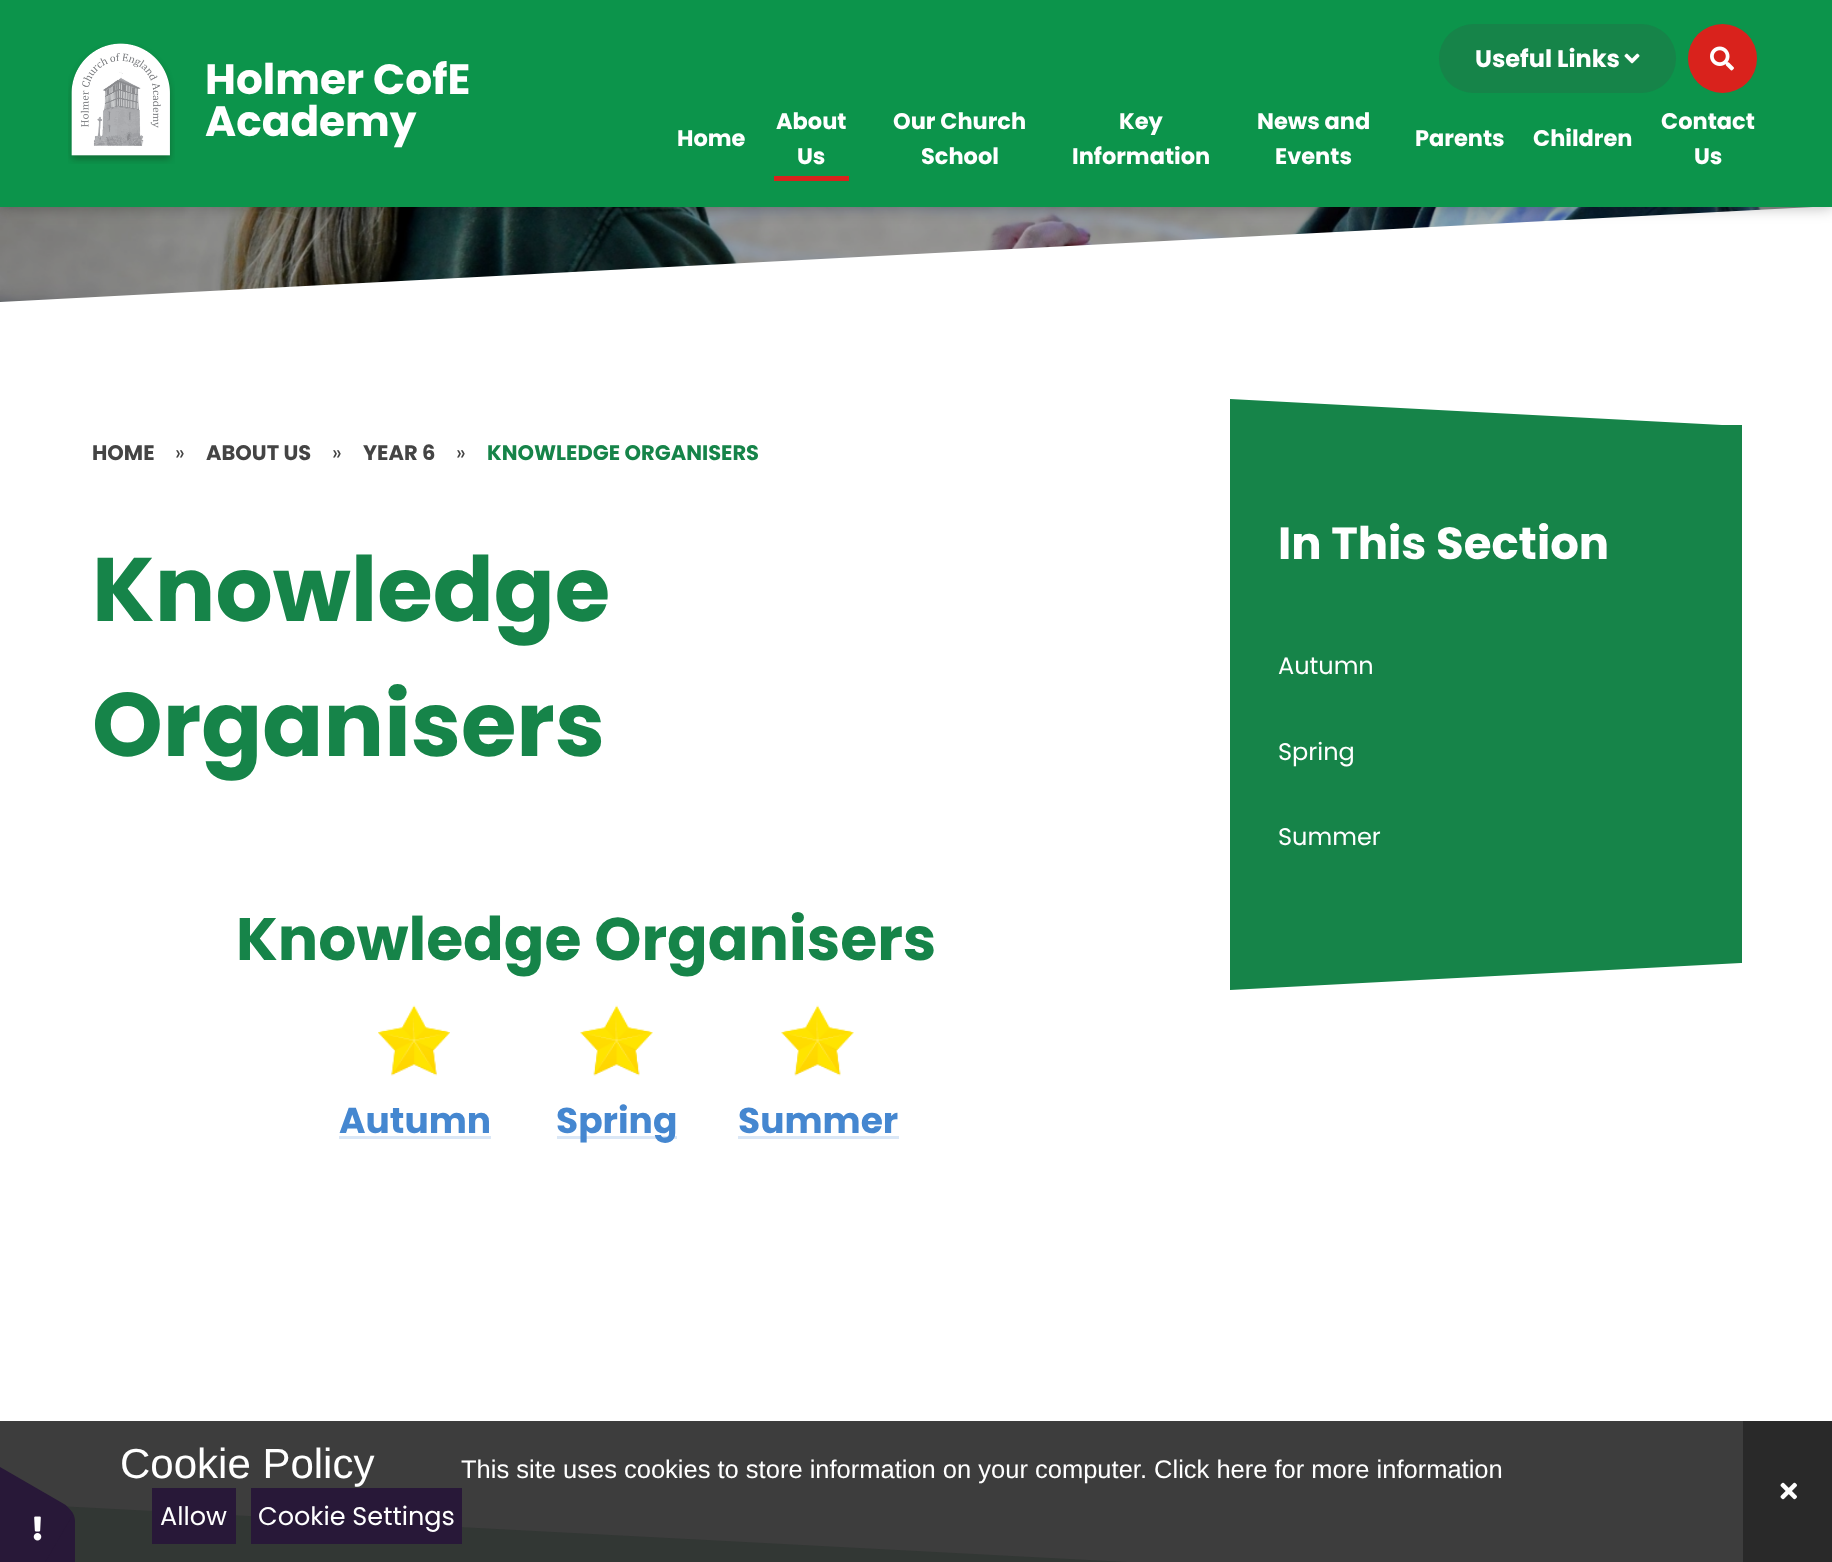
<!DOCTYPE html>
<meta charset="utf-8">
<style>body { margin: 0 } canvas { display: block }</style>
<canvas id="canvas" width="1832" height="1562"></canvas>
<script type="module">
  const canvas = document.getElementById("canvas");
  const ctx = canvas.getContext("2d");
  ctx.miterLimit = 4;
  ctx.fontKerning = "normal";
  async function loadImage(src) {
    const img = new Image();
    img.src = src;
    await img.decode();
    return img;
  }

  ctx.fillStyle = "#ffffff";
  ctx.fillRect(0, 0, 1832, 1562);
  ctx.fillStyle = "#3d3d3d";
  ctx.fillRect(0, 1421, 1743, 141);
  ctx.drawImage(await loadImage("img4.png"), 0, 207, 1814, 95);
  ctx.save();
  ctx.beginPath();
  ctx.rect(0, 206, 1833, 100);
  ctx.clip();
  ctx.fillStyle = "#ffffff";
  ctx.beginPath();
  ctx.moveTo(0, 302);
  ctx.lineTo(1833, 206);
  ctx.lineTo(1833, 310);
  ctx.lineTo(0, 310);
  ctx.closePath();
  ctx.fill();
  ctx.restore();
  ctx.fillStyle = "rgba(0, 0, 0, 0.3)";
  ctx.filter = "blur(7.5px)";
  ctx.beginPath();
  ctx.rect(0, -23, 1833, 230);
  ctx.fill();
  ctx.filter = "none";
  ctx.fillStyle = "#0c944b";
  ctx.fillRect(0, 0, 1832, 207);
  ctx.drawImage(await loadImage("img1.png"), 68, 43, 107, 121);
  ctx.font = "bold 42.25px Poppins";
  ctx.fillStyle = "#ffffff";
  ctx.fillText("Holmer CofE", 205, 94);
  ctx.fillText("Academy", 205, 136);
  ctx.fillStyle = "#168449";
  ctx.beginPath();
  ctx.roundRect(1439, 24, 237, 69, 34.5);
  ctx.fill();
  ctx.font = "bold 24px Poppins";
  ctx.fillStyle = "#ffffff";
  ctx.fillText("Useful Links", 1475, 67);
  ctx.drawImage(await loadImage("img2.png"), 1624, 53, 16, 11);
  ctx.fillStyle = "#d9221c";
  ctx.beginPath();
  ctx.arc(1722.5, 58.5, 34.5, 0, Math.PI * 2);
  ctx.fill();
  ctx.drawImage(await loadImage("img3.png"), 1710, 46, 24, 25);
  ctx.font = "bold 22.5px Poppins";
  ctx.fillStyle = "#ffffff";
  ctx.fillText("Home", 677, 146);
  ctx.fillText("About", 776, 129);
  ctx.fillText("Us", 797, 164);
  ctx.fillStyle = "#d9221c";
  ctx.fillRect(774, 176, 75, 5);
  ctx.fillStyle = "#ffffff";
  ctx.fillText("Our Church", 893, 129);
  ctx.fillText("School", 921, 164);
  ctx.fillText("Key", 1119, 129);
  ctx.fillText("Information", 1072, 164);
  ctx.fillText("News and", 1257, 129);
  ctx.fillText("Events", 1275, 164);
  ctx.fillText("Parents", 1415, 146);
  ctx.fillText("Children", 1533, 146);
  ctx.fillText("Contact", 1661, 129);
  ctx.fillText("Us", 1694, 164);
  ctx.font = "bold 21px Poppins";
  ctx.fillStyle = "#444444";
  ctx.fillText("HOME", 92, 460);
  ctx.font = "21px Poppins";
  ctx.fillText("»", 175, 460);
  ctx.font = "bold 21px Poppins";
  ctx.fillText("ABOUT US", 206, 460);
  ctx.font = "21px Poppins";
  ctx.fillText("»", 332, 460);
  ctx.font = "bold 21px Poppins";
  ctx.fillText("YEAR 6", 363, 460);
  ctx.font = "21px Poppins";
  ctx.fillText("»", 456, 460);
  ctx.font = "bold 21px Poppins";
  ctx.fillStyle = "#168449";
  ctx.fillText("KNOWLEDGE ORGANISERS", 487, 460);
  ctx.font = "bold 90px Poppins";
  ctx.fillText("Knowledge", 92, 621);
  ctx.fillText("Organisers", 92, 756);
  ctx.font = "bold 60px Poppins";
  ctx.fillText("Knowledge Organisers", 236, 960);
  ctx.drawImage(await loadImage("img5.png"), 378, 1005, 72, 71);
  ctx.font = "bold 36px Poppins";
  ctx.fillStyle = "#4587d0";
  ctx.fillText("Autumn", 339, 1133);
  ctx.fillStyle = "#dae7f6";
  ctx.fillRect(339, 1136, 152, 3);
  ctx.drawImage(await loadImage("img6.png"), 580, 1005, 73, 71);
  ctx.fillRect(557, 1136, 120, 3);
  ctx.fillStyle = "#4587d0";
  ctx.fillText("Spring", 556, 1133);
  ctx.drawImage(await loadImage("img7.png"), 781, 1005, 73, 71);
  ctx.fillText("Summer", 738, 1133);
  ctx.fillStyle = "#dae7f6";
  ctx.fillRect(738, 1136, 161, 3);
  ctx.fillStyle = "#168449";
  ctx.beginPath();
  ctx.moveTo(1741, 426);
  ctx.lineTo(1230, 399);
  ctx.lineTo(1230, 428);
  ctx.lineTo(1741, 428);
  ctx.closePath();
  ctx.fill();
  ctx.beginPath();
  ctx.moveTo(1741, 963);
  ctx.lineTo(1230, 990);
  ctx.lineTo(1230, 961);
  ctx.lineTo(1741, 961);
  ctx.closePath();
  ctx.fill();
  ctx.fillRect(1230, 425, 512, 538);
  ctx.font = "bold 45px Poppins";
  ctx.fillStyle = "#ffffff";
  ctx.fillText("In This Section", 1278, 559);
  ctx.font = "24px Poppins";
  ctx.fillText("Autumn", 1278, 674);
  ctx.fillText("Spring", 1278, 760);
  ctx.fillText("Summer", 1278, 845);
  ctx.fillStyle = "#323734";
  ctx.beginPath();
  ctx.moveTo(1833, 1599);
  ctx.lineTo(0, 1503);
  ctx.lineTo(0, 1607);
  ctx.lineTo(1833, 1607);
  ctx.closePath();
  ctx.fill();
  ctx.fillStyle = "#281838";
  ctx.beginPath();
  ctx.moveTo(75, 1522);
  ctx.lineTo(75, 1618);
  ctx.bezierCurveTo(75, 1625, 72, 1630, 69, 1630);
  ctx.lineTo(-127, 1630);
  ctx.bezierCurveTo(-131, 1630, -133, 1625, -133, 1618);
  ctx.lineTo(-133, 1522);
  ctx.bezierCurveTo(-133, 1516, -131, 1510, -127, 1510);
  ctx.lineTo(69, 1510);
  ctx.bezierCurveTo(72, 1510, 75, 1516, 75, 1522);
  ctx.closePath();
  ctx.fill();
  ctx.beginPath();
  ctx.moveTo(-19, 1456);
  ctx.lineTo(64, 1504);
  ctx.bezierCurveTo(70, 1508, 73, 1513, 72, 1516);
  ctx.lineTo(-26, 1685);
  ctx.bezierCurveTo(-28, 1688, -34, 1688, -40, 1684);
  ctx.lineTo(-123, 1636);
  ctx.bezierCurveTo(-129, 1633, -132, 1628, -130, 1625);
  ctx.lineTo(-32, 1456);
  ctx.bezierCurveTo(-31, 1453, -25, 1453, -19, 1456);
  ctx.closePath();
  ctx.fill();
  ctx.drawImage(await loadImage("img8.png"), 33, 1516, 9, 25);
  ctx.font = "42px Liberation Sans";
  ctx.fillStyle = "#ffffff";
  ctx.fillText("Cookie Policy", 120, 1478);
  ctx.font = "25.5px Liberation Sans";
  ctx.fillText("This site uses cookies to store information on your computer. Click here for more information", 461, 1478);
  ctx.fillStyle = "#281838";
  ctx.fillRect(152, 1488, 84, 56);
  ctx.font = "25.5px Poppins";
  ctx.fillStyle = "#ffffff";
  ctx.fillText("Allow", 160, 1525);
  ctx.fillStyle = "#281838";
  ctx.fillRect(251, 1488, 211, 56);
  ctx.fillStyle = "#ffffff";
  ctx.fillText("Cookie Settings", 258, 1525);
  ctx.fillStyle = "#292929";
  ctx.fillRect(1743, 1421, 89, 141);
  ctx.drawImage(await loadImage("img9.png"), 1780, 1482, 17, 18);
</script>
